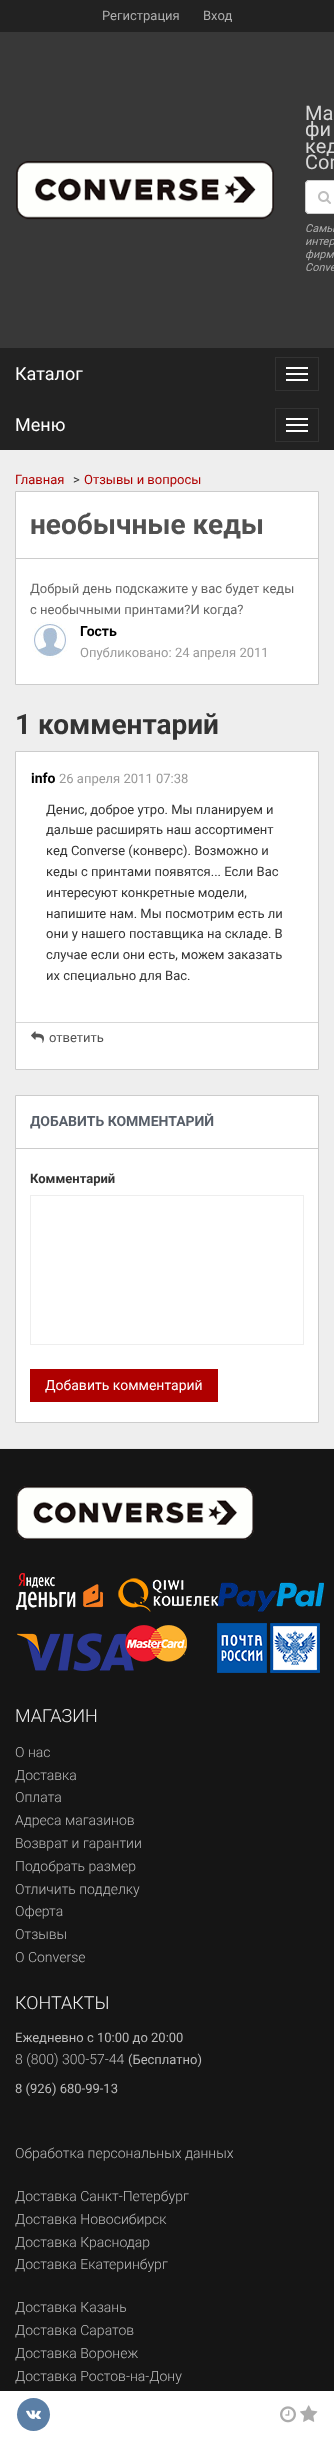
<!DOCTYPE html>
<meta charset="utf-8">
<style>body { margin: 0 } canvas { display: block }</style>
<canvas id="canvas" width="334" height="2438"></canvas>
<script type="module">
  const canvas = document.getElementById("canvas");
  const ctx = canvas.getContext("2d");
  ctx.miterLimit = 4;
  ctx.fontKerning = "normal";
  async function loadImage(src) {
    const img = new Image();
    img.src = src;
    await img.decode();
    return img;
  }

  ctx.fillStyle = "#383838";
  ctx.fillRect(0, 0, 334, 2438);
  ctx.fillStyle = "#222222";
  ctx.fillRect(0, 0, 334, 32);
  ctx.font = "13px Roboto";
  ctx.fillStyle = "#aeaeae";
  ctx.fillText("Регистрация", 102, 20);
  ctx.fillText("Вход", 203, 20);
  ctx.drawImage(await loadImage("img1.png"), 16, 161, 258, 59);
  ctx.font = "20px Roboto";
  ctx.fillStyle = "#d8d8d8";
  ctx.fillText("Ма", 305, 120);
  ctx.fillText("фи", 305, 136);
  ctx.fillText("кед", 305, 153);
  ctx.fillText("Con", 305, 169);
  ctx.fillStyle = "#ffffff";
  ctx.beginPath();
  ctx.moveTo(309, 180);
  ctx.lineTo(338, 180);
  ctx.lineTo(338, 214);
  ctx.lineTo(309, 214);
  ctx.bezierCurveTo(307, 214, 305, 212, 305, 210);
  ctx.lineTo(305, 184);
  ctx.bezierCurveTo(305, 182, 307, 180, 309, 180);
  ctx.closePath();
  ctx.fill();
  ctx.fillStyle = "#cccccc";
  ctx.beginPath();
  ctx.moveTo(309, 180);
  ctx.lineTo(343, 180);
  ctx.lineTo(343, 214);
  ctx.lineTo(309, 214);
  ctx.bezierCurveTo(307, 214, 305, 212, 305, 210);
  ctx.lineTo(305, 184);
  ctx.bezierCurveTo(305, 182, 307, 180, 309, 180);
  ctx.closePath();
  ctx.moveTo(309, 181);
  ctx.lineTo(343, 181);
  ctx.lineTo(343, 213);
  ctx.lineTo(309, 213);
  ctx.bezierCurveTo(307.5, 213, 306, 211.5, 306, 210);
  ctx.lineTo(306, 184);
  ctx.bezierCurveTo(306, 182.5, 307.5, 181, 309, 181);
  ctx.closePath();
  ctx.fill("evenodd");
  ctx.drawImage(await loadImage("img2.png"), 318, 191, 13, 13);
  ctx.font = "italic 11px Roboto";
  ctx.fillStyle = "#aeaeae";
  ctx.fillText("Самы", 305, 232);
  ctx.fillText("интер", 305, 245);
  ctx.fillText("фирм", 305, 258);
  ctx.fillText("Conve", 305, 271);
  ctx.fillStyle = "#222222";
  ctx.fillRect(0, 348, 334, 102);
  ctx.font = "18px Roboto";
  ctx.fillStyle = "#ffffff";
  ctx.fillText("Каталог", 15, 380);
  ctx.strokeStyle = "#333333";
  ctx.strokeRect(275.5, 357.5, 43, 33);
  ctx.fillRect(286, 367, 22, 2);
  ctx.fillRect(286, 373, 22, 2);
  ctx.fillRect(286, 379, 22, 2);
  ctx.fillText("Меню", 15, 431);
  ctx.strokeRect(275.5, 408.5, 43, 33);
  ctx.fillRect(286, 418, 22, 2);
  ctx.fillRect(286, 424, 22, 2);
  ctx.fillRect(286, 430, 22, 2);
  ctx.fillStyle = "#eeeeee";
  ctx.fillRect(0, 450, 334, 998);
  ctx.font = "13px Roboto";
  ctx.fillStyle = "#af0000";
  ctx.fillText("Главная", 15, 484);
  ctx.fillStyle = "#333333";
  ctx.fillText(">", 73, 484);
  ctx.fillStyle = "#af0000";
  ctx.fillText("Отзывы и вопросы", 84, 484);
  ctx.fillStyle = "#ffffff";
  ctx.beginPath();
  ctx.rect(15.5, 491.5, 303, 193);
  ctx.fill();
  ctx.strokeStyle = "#cccccc";
  ctx.stroke();
  ctx.fillStyle = "#cccccc";
  ctx.fillRect(16, 558, 302, 1);
  ctx.font = "bold 28px Roboto";
  ctx.fillStyle = "#515151";
  ctx.fillText("необычные кеды", 30, 534);
  ctx.font = "13px Roboto";
  ctx.fillStyle = "#646464";
  ctx.fillText("Добрый день подскажите у вас будет кеды", 30, 593);
  ctx.fillText("с необычными принтами?И когда?", 30, 614);
  ctx.drawImage(await loadImage("img3.png"), 32, 622, 36, 36);
  ctx.font = "bold 14px Roboto";
  ctx.fillStyle = "#000000";
  ctx.fillText("Гость", 80, 636);
  ctx.font = "13px Roboto";
  ctx.fillStyle = "#999999";
  ctx.fillText("Опубликовано: 24 апреля 2011", 80, 657);
  ctx.font = "bold 28px Roboto";
  ctx.fillStyle = "#333333";
  ctx.fillText("1 комментарий", 15, 734);
  ctx.fillStyle = "#ffffff";
  ctx.beginPath();
  ctx.rect(15.5, 751.5, 303, 318);
  ctx.fill();
  ctx.stroke();
  ctx.fillStyle = "#d7d7d7";
  ctx.fillRect(16, 1022, 302, 1);
  ctx.font = "bold 14px Roboto";
  ctx.fillStyle = "#000000";
  ctx.fillText("info", 31, 783);
  ctx.font = "13px Roboto";
  ctx.fillStyle = "#999999";
  ctx.fillText("26 апреля 2011 07:38", 59, 783);
  ctx.fillStyle = "#333333";
  ctx.fillText("Денис, доброе утро. Мы планируем и", 46, 814);
  ctx.fillText("дальше расширять наш ассортимент", 46, 834);
  ctx.fillText("кед Converse (конверс). Возможно и", 46, 855);
  ctx.fillText("кеды с принтами появятся... Если Вас", 46, 876);
  ctx.fillText("интересуют конкретные модели,", 46, 897);
  ctx.fillText("напишите нам. Мы посмотрим есть ли", 46, 918);
  ctx.fillText("они у нашего поставщика на складе. В", 46, 938);
  ctx.fillText("случае если они есть, можем заказать", 46, 959);
  ctx.fillText("их специально для Вас.", 46, 980);
  ctx.drawImage(await loadImage("img4.png"), 31, 1031, 13, 12);
  ctx.fillStyle = "#515151";
  ctx.fillText("ответить", 49, 1042);
  ctx.fillStyle = "#ffffff";
  ctx.beginPath();
  ctx.rect(15.5, 1095.5, 303, 327);
  ctx.fill();
  ctx.stroke();
  ctx.fillStyle = "#cccccc";
  ctx.fillRect(16, 1148, 302, 1);
  ctx.font = "bold 14px Roboto";
  ctx.fillStyle = "#585f69";
  ctx.fillText("ДОБАВИТЬ КОММЕНТАРИЙ", 30, 1126);
  ctx.font = "bold 13px Roboto";
  ctx.fillStyle = "#333333";
  ctx.fillText("Комментарий", 30, 1183);
  ctx.strokeStyle = "#eeeeee";
  ctx.strokeRect(30.5, 1195.5, 273, 149);
  ctx.fillStyle = "#af0000";
  ctx.fillRect(30, 1369, 188, 33);
  ctx.font = "14px Roboto";
  ctx.fillStyle = "#ffffff";
  ctx.fillText("Добавить комментарий", 45, 1390);
  ctx.fillStyle = "#151515";
  ctx.fillRect(0, 1449, 334, 942);
  ctx.fillStyle = "#e5e5e5";
  ctx.fillRect(0, 1448, 334, 1);
  ctx.drawImage(await loadImage("img5.png"), 16, 1486, 238, 54);
  ctx.drawImage(await loadImage("img6.png"), 16, 1573, 87, 37);
  ctx.drawImage(await loadImage("img7.png"), 118, 1578, 101, 34);
  ctx.drawImage(await loadImage("img8.png"), 217, 1582, 107, 30);
  ctx.drawImage(await loadImage("img9.png"), 17, 1633, 117, 38);
  ctx.drawImage(await loadImage("img10.png"), 125, 1625, 62, 37);
  ctx.drawImage(await loadImage("img11.png"), 217, 1623, 103, 50);
  ctx.font = "300 18px Roboto";
  ctx.fillStyle = "#eeeeee";
  ctx.fillText("МАГАЗИН", 15, 1722);
  ctx.font = "300 14px Roboto";
  ctx.fillStyle = "#bbbbbb";
  ctx.fillText("О нас", 15, 1757);
  ctx.fillText("Доставка", 15, 1780);
  ctx.fillText("Оплата", 15, 1802);
  ctx.fillText("Адреса магазинов", 15, 1825);
  ctx.fillText("Возврат и гарантии", 15, 1848);
  ctx.fillText("Подобрать размер", 15, 1871);
  ctx.fillText("Отличить подделку", 15, 1894);
  ctx.fillText("Оферта", 15, 1916);
  ctx.fillText("Отзывы", 15, 1939);
  ctx.fillText("О Converse", 15, 1962);
  ctx.font = "300 18px Roboto";
  ctx.fillStyle = "#eeeeee";
  ctx.fillText("КОНТАКТЫ", 15, 2009);
  ctx.font = "13px Roboto";
  ctx.fillStyle = "#bbbbbb";
  ctx.fillText("Ежедневно с 10:00 до 20:00", 15, 2042);
  ctx.font = "300 14px Roboto";
  ctx.fillText("8 (800) 300-57-44", 15, 2064);
  ctx.font = "13px Roboto";
  ctx.fillText("(Бесплатно)", 128, 2064);
  ctx.fillText("8 (926) 680-99-13", 15, 2093);
  ctx.font = "300 14px Roboto";
  ctx.fillText("Обработка персональных данных", 15, 2158);
  ctx.fillText("Доставка Санкт-Петербург", 15, 2201);
  ctx.fillText("Доставка Новосибирск", 15, 2224);
  ctx.fillText("Доставка Краснодар", 15, 2247);
  ctx.fillText("Доставка Екатеринбург", 15, 2269);
  ctx.fillText("Доставка Казань", 15, 2312);
  ctx.fillText("Доставка Саратов", 15, 2335);
  ctx.fillText("Доставка Воронеж", 15, 2358);
  ctx.fillText("Доставка Ростов-на-Дону", 15, 2381);
  ctx.fillStyle = "#ffffff";
  ctx.fillRect(0, 2391, 334, 47);
  ctx.fillStyle = "#5b7fa6";
  ctx.beginPath();
  ctx.arc(33.5, 2414.5, 16.5, 0, Math.PI * 2);
  ctx.fill();
  ctx.drawImage(await loadImage("img12.png"), 26, 2410, 15, 9);
  ctx.drawImage(await loadImage("img13.png"), 280, 2406, 16, 17);
  ctx.drawImage(await loadImage("img14.png"), 300, 2405, 18, 17);
</script>
